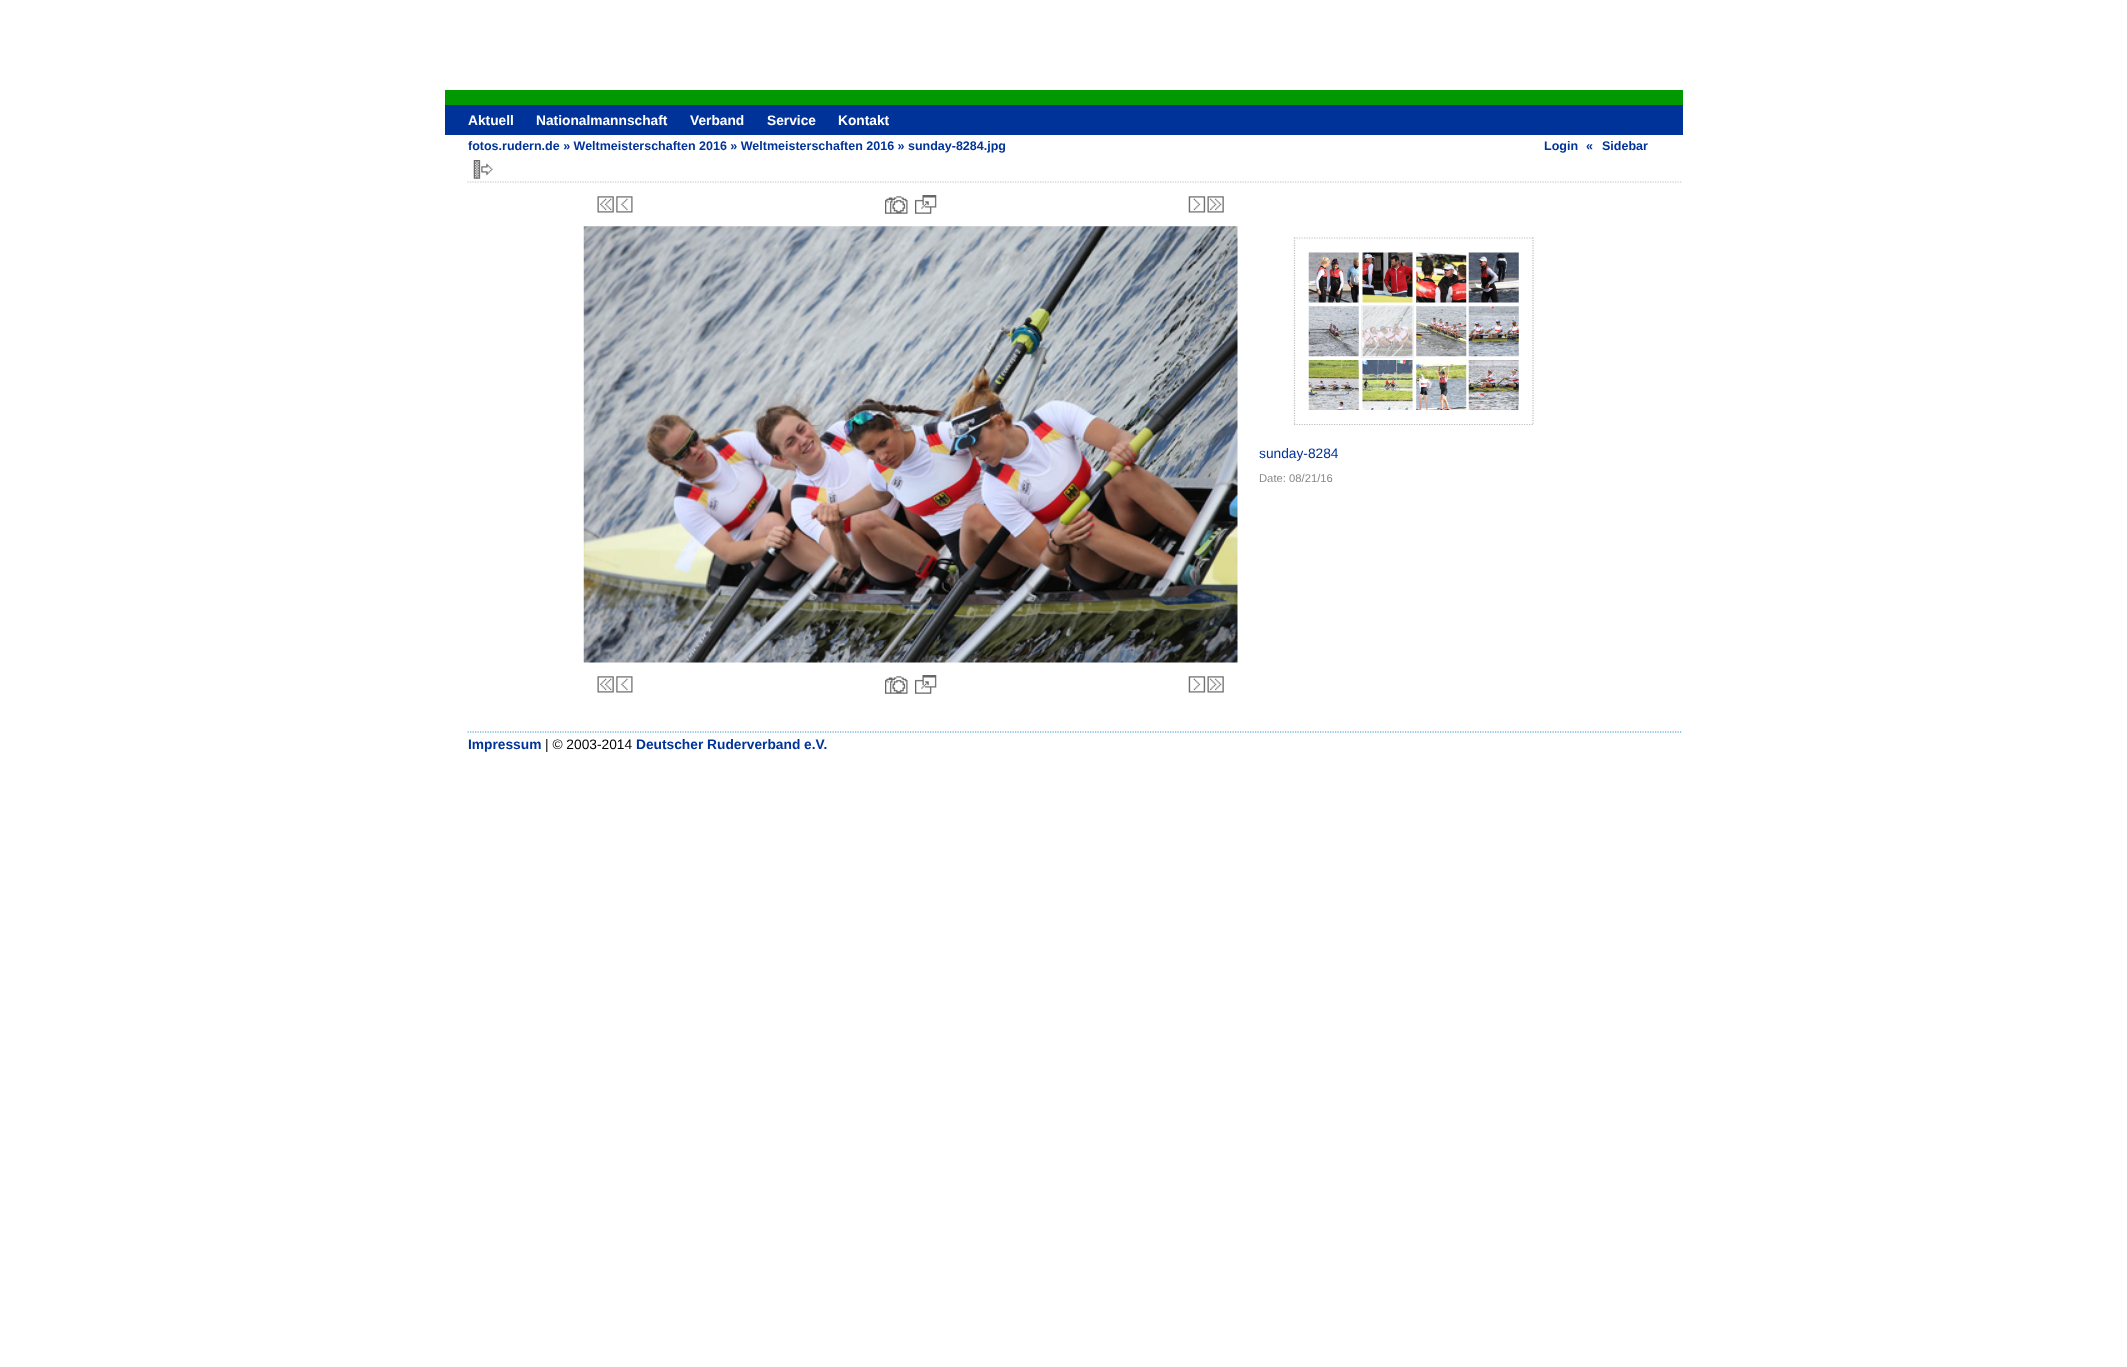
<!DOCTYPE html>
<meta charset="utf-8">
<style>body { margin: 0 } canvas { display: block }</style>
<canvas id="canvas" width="2127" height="1367"></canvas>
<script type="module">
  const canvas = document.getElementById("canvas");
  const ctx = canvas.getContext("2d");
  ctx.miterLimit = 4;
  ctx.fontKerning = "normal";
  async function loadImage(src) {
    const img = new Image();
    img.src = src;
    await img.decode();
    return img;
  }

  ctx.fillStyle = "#ffffff";
  ctx.fillRect(0, 0, 2127, 1367);
  ctx.fillStyle = "#003399";
  ctx.fillRect(445, 105, 1238, 30);
  ctx.fillStyle = "#009900";
  ctx.fillRect(445, 90, 1238, 15);
  ctx.font = "bold 13.75px Liberation Sans";
  ctx.fillStyle = "#ffffff";
  ctx.fillText("Aktuell", 468, 125);
  ctx.fillText("Nationalmannschaft", 536, 125);
  ctx.fillText("Verband", 690, 125);
  ctx.fillText("Service", 767, 125);
  ctx.fillText("Kontakt", 838, 125);
  ctx.font = "bold 12.5px Liberation Sans";
  ctx.fillStyle = "#003399";
  ctx.fillText("fotos.rudern.de » Weltmeisterschaften 2016 » Weltmeisterschaften 2016 » sunday-8284.jpg", 468, 150);
  ctx.fillText("Login", 1544, 150);
  ctx.fillText("«", 1586, 150);
  ctx.fillText("Sidebar", 1602, 150);
  ctx.beginPath();
  ctx.moveTo(467.5, 182);
  ctx.lineTo(1682.5, 182);
  ctx.strokeStyle = "#c0c0c0";
  ctx.lineWidth = 1.2;
  ctx.setLineDash([1.25, 1.25]);
  ctx.stroke();
  ctx.drawImage(await loadImage("img1.png"), 473, 160, 20, 19);
  ctx.drawImage(await loadImage("img2.png"), 597, 196, 17, 17);
  ctx.drawImage(await loadImage("img3.png"), 616, 196, 17, 17);
  ctx.drawImage(await loadImage("img4.png"), 885, 196, 23, 18);
  ctx.drawImage(await loadImage("img5.png"), 915, 195, 22, 19);
  ctx.drawImage(await loadImage("img6.png"), 1188, 196, 18, 17);
  ctx.drawImage(await loadImage("img7.png"), 1207, 196, 17, 17);
  ctx.drawImage(await loadImage("img8.png"), 583, 226, 655, 437);
  ctx.beginPath();
  ctx.moveTo(1294, 238);
  ctx.lineTo(1534, 238);
  ctx.stroke();
  ctx.beginPath();
  ctx.moveTo(1533, 237.5);
  ctx.lineTo(1533, 425);
  ctx.stroke();
  ctx.beginPath();
  ctx.moveTo(1294, 424.5);
  ctx.lineTo(1534, 424.5);
  ctx.stroke();
  ctx.beginPath();
  ctx.moveTo(1294.5, 237.5);
  ctx.lineTo(1294.5, 425);
  ctx.stroke();
  ctx.drawImage(await loadImage("img9.png"), 1308, 252, 51, 51);
  ctx.drawImage(await loadImage("img10.png"), 1362, 252, 51, 51);
  ctx.drawImage(await loadImage("img11.png"), 1416, 252, 51, 51);
  ctx.drawImage(await loadImage("img12.png"), 1468, 252, 51, 51);
  ctx.drawImage(await loadImage("img13.png"), 1308, 306, 51, 51);
  ctx.strokeStyle = "#f1f1f1";
  ctx.lineWidth = 1;
  ctx.setLineDash([]);
  ctx.strokeRect(1361.5, 305.5, 52, 52);
  ctx.drawImage(await loadImage("img14.png"), 1362, 306, 51, 51);
  ctx.drawImage(await loadImage("img15.png"), 1416, 306, 51, 51);
  ctx.drawImage(await loadImage("img16.png"), 1468, 306, 51, 51);
  ctx.drawImage(await loadImage("img17.png"), 1308, 360, 51, 50);
  ctx.drawImage(await loadImage("img18.png"), 1362, 360, 51, 50);
  ctx.drawImage(await loadImage("img19.png"), 1416, 360, 51, 50);
  ctx.drawImage(await loadImage("img20.png"), 1468, 360, 51, 50);
  ctx.font = "13.75px Liberation Sans";
  ctx.fillText("sunday-8284", 1259, 458);
  ctx.font = "11.25px Liberation Sans";
  ctx.fillStyle = "#888888";
  ctx.fillText("Date: 08/21/16", 1259, 482);
  ctx.drawImage(await loadImage("img2.png"), 597, 676, 17, 17);
  ctx.drawImage(await loadImage("img3.png"), 616, 676, 17, 17);
  ctx.drawImage(await loadImage("img4.png"), 885, 676, 23, 18);
  ctx.drawImage(await loadImage("img5.png"), 915, 675, 22, 19);
  ctx.drawImage(await loadImage("img6.png"), 1188, 676, 18, 17);
  ctx.drawImage(await loadImage("img7.png"), 1207, 676, 17, 17);
  ctx.beginPath();
  ctx.moveTo(467.5, 732);
  ctx.lineTo(1682.5, 732);
  ctx.strokeStyle = "#3399cc";
  ctx.lineWidth = 1.2;
  ctx.setLineDash([1.25, 1.25]);
  ctx.stroke();
  ctx.font = "bold 13.75px Liberation Sans";
  ctx.fillStyle = "#003399";
  ctx.fillText("Impressum", 468, 749);
  ctx.font = "13.75px Liberation Sans";
  ctx.fillStyle = "#000000";
  ctx.fillText("| © 2003-2014", 545, 749);
  ctx.font = "bold 13.75px Liberation Sans";
  ctx.fillStyle = "#003399";
  ctx.fillText("Deutscher Ruderverband e.V.", 636, 749);
</script>
